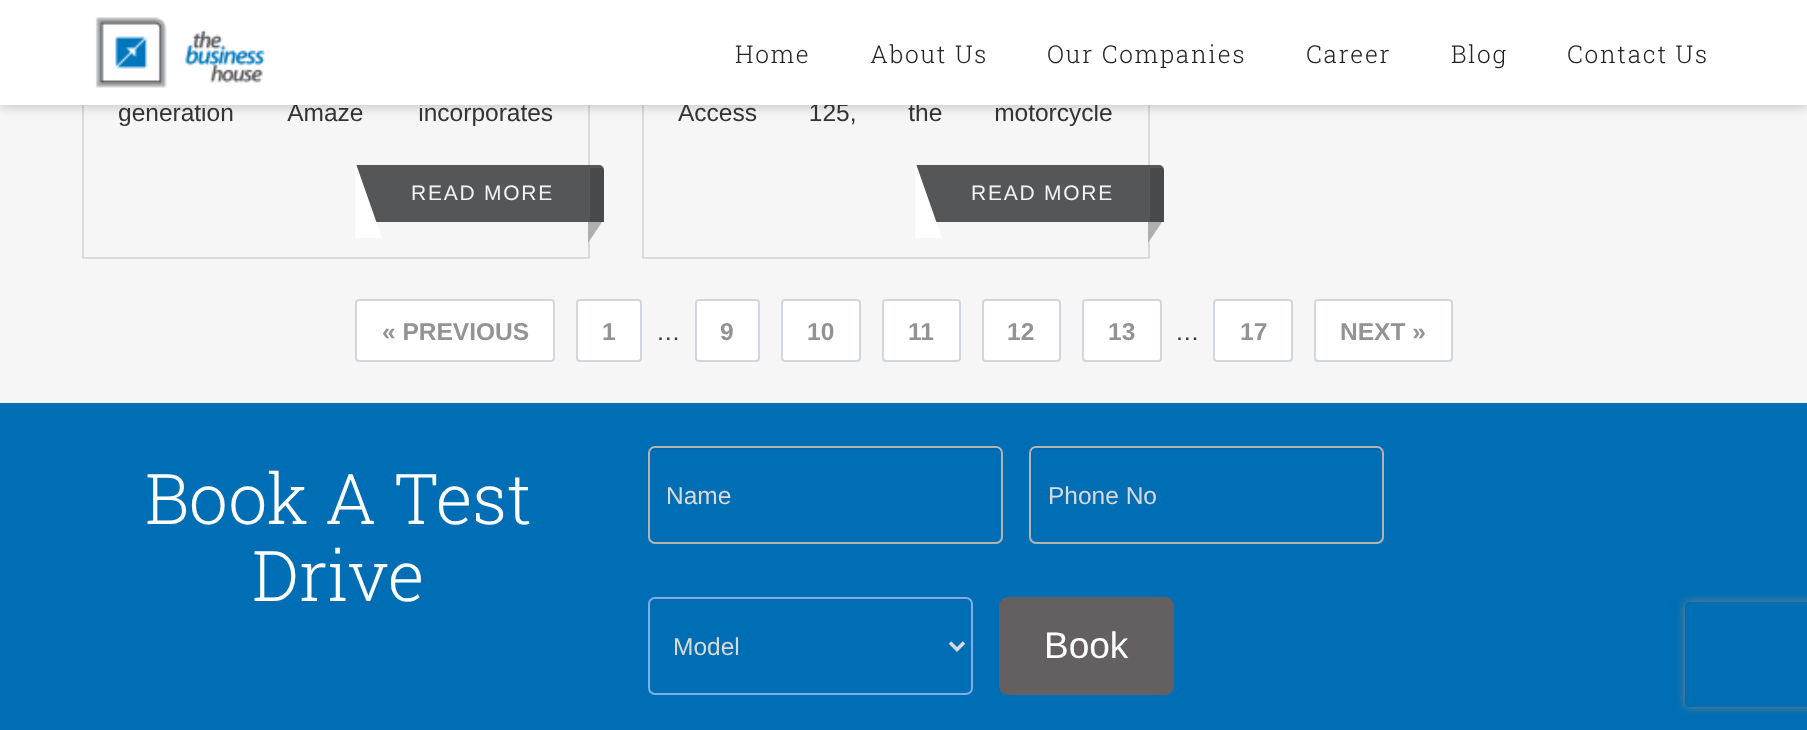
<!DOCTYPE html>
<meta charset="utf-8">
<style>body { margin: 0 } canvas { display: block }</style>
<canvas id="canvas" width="1807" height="730"></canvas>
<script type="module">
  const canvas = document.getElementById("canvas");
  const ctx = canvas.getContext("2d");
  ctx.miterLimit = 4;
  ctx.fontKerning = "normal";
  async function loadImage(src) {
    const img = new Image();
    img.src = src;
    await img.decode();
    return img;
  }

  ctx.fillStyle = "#f6f6f6";
  ctx.fillRect(0, 0, 1807, 730);
  ctx.strokeStyle = "#dadada";
  ctx.lineWidth = 2;
  ctx.strokeRect(83, -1, 506, 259);
  ctx.strokeRect(643, -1, 506, 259);
  ctx.fillStyle = "rgba(0, 0, 0, 0.2)";
  ctx.filter = "blur(6px)";
  ctx.beginPath();
  ctx.rect(0, 2, 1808, 105);
  ctx.fill();
  ctx.filter = "none";
  ctx.wordSpacing = "48px";
  ctx.font = "24.5px Liberation Sans";
  ctx.fillStyle = "#333333";
  ctx.fillText("generation Amaze incorporates", 118, 121);
  ctx.wordSpacing = "45px";
  ctx.fillText("Access 125, the motorcycle", 678, 121);
  ctx.fillStyle = "#ffffff";
  ctx.fillRect(0, 0, 1807, 105);
  ctx.drawImage(await loadImage("img1.png"), 95, 17, 170, 71);
  ctx.letterSpacing = "1.75px";
  ctx.wordSpacing = "0px";
  ctx.font = "300 24.5px Roboto Slab";
  ctx.fillStyle = "#222222";
  ctx.fillText("Home", 735, 63);
  ctx.fillText("About Us", 870, 63);
  ctx.fillText("Our Companies", 1047, 63);
  ctx.fillText("Career", 1306, 63);
  ctx.fillText("Blog", 1451, 63);
  ctx.fillText("Contact Us", 1567, 63);
  ctx.fillStyle = "#555657";
  ctx.beginPath();
  ctx.roundRect(355, 165, 249, 57, [0, 5, 0, 0]);
  ctx.fill();
  ctx.fillStyle = "rgba(0, 0, 0, 0.15)";
  ctx.fillRect(590, 168, 14, 54);
  ctx.fillStyle = "#ffffff";
  ctx.beginPath();
  ctx.moveTo(355, 238);
  ctx.lineTo(355, 161);
  ctx.lineTo(382, 238);
  ctx.closePath();
  ctx.fill();
  ctx.font = "21px Liberation Sans";
  ctx.fillStyle = "#f2f2f2";
  ctx.fillText("READ MORE", 411, 200);
  ctx.fillStyle = "#afafaf";
  ctx.beginPath();
  ctx.moveTo(588, 222);
  ctx.lineTo(602, 222);
  ctx.lineTo(588, 243);
  ctx.closePath();
  ctx.fill();
  ctx.fillStyle = "#555657";
  ctx.beginPath();
  ctx.roundRect(915, 165, 249, 57, [0, 5, 0, 0]);
  ctx.fill();
  ctx.fillStyle = "rgba(0, 0, 0, 0.15)";
  ctx.fillRect(1150, 168, 14, 54);
  ctx.fillStyle = "#ffffff";
  ctx.beginPath();
  ctx.moveTo(915, 238);
  ctx.lineTo(915, 161);
  ctx.lineTo(942, 238);
  ctx.closePath();
  ctx.fill();
  ctx.fillStyle = "#f2f2f2";
  ctx.fillText("READ MORE", 971, 200);
  ctx.fillStyle = "#afafaf";
  ctx.beginPath();
  ctx.moveTo(1148, 222);
  ctx.lineTo(1162, 222);
  ctx.lineTo(1148, 243);
  ctx.closePath();
  ctx.fill();
  ctx.fillStyle = "#ffffff";
  ctx.beginPath();
  ctx.roundRect(356, 300, 198, 61, 3);
  ctx.fill();
  ctx.strokeStyle = "#d1d7dc";
  ctx.stroke();
  ctx.letterSpacing = "0px";
  ctx.font = "bold 24.5px Liberation Sans";
  ctx.fillStyle = "#919394";
  ctx.fillText("« PREVIOUS", 382, 340);
  ctx.fillStyle = "#ffffff";
  ctx.beginPath();
  ctx.roundRect(577, 300, 64, 61, 3);
  ctx.fill();
  ctx.stroke();
  ctx.fillStyle = "#919394";
  ctx.fillText("1", 602, 340);
  ctx.font = "24.5px Liberation Sans";
  ctx.fillStyle = "#333333";
  ctx.fillText("…", 656, 340);
  ctx.fillStyle = "#ffffff";
  ctx.beginPath();
  ctx.roundRect(696, 300, 63, 61, 3);
  ctx.fill();
  ctx.stroke();
  ctx.font = "bold 24.5px Liberation Sans";
  ctx.fillStyle = "#919394";
  ctx.fillText("9", 720, 340);
  ctx.fillStyle = "#ffffff";
  ctx.beginPath();
  ctx.roundRect(782, 300, 78, 61, 3);
  ctx.fill();
  ctx.stroke();
  ctx.fillStyle = "#919394";
  ctx.fillText("10", 807, 340);
  ctx.fillStyle = "#ffffff";
  ctx.beginPath();
  ctx.roundRect(883, 300, 77, 61, 3);
  ctx.fill();
  ctx.stroke();
  ctx.fillStyle = "#919394";
  ctx.fillText("11", 908, 340);
  ctx.fillStyle = "#ffffff";
  ctx.beginPath();
  ctx.roundRect(983, 300, 77, 61, 3);
  ctx.fill();
  ctx.stroke();
  ctx.fillStyle = "#919394";
  ctx.fillText("12", 1007, 340);
  ctx.fillStyle = "#ffffff";
  ctx.beginPath();
  ctx.roundRect(1083, 300, 78, 61, 3);
  ctx.fill();
  ctx.stroke();
  ctx.fillStyle = "#919394";
  ctx.fillText("13", 1108, 340);
  ctx.font = "24.5px Liberation Sans";
  ctx.fillStyle = "#333333";
  ctx.fillText("…", 1175, 340);
  ctx.fillStyle = "#ffffff";
  ctx.beginPath();
  ctx.roundRect(1214, 300, 78, 61, 3);
  ctx.fill();
  ctx.stroke();
  ctx.font = "bold 24.5px Liberation Sans";
  ctx.fillStyle = "#919394";
  ctx.fillText("17", 1240, 340);
  ctx.fillStyle = "#ffffff";
  ctx.beginPath();
  ctx.roundRect(1315, 300, 137, 61, 3);
  ctx.fill();
  ctx.stroke();
  ctx.fillStyle = "#919394";
  ctx.fillText("NEXT »", 1340, 340);
  ctx.fillStyle = "#006eb5";
  ctx.fillRect(0, 403, 1807, 327);
  ctx.font = "300 70px Roboto Slab";
  ctx.fillStyle = "#ffffff";
  ctx.fillText("Book A Test", 145, 524);
  ctx.fillText("Drive", 252, 601);
  ctx.fillStyle = "#0066a7";
  ctx.beginPath();
  ctx.moveTo(654, 450);
  ctx.lineTo(996, 450);
  ctx.bezierCurveTo(999, 450, 1001, 452, 1001, 455);
  ctx.bezierCurveTo(1001, 452, 1000, 448, 996, 448);
  ctx.lineTo(654, 448);
  ctx.bezierCurveTo(650, 448, 649, 452, 649, 455);
  ctx.bezierCurveTo(649, 452, 652, 450, 654, 450);
  ctx.closePath();
  ctx.fill();
  ctx.beginPath();
  ctx.roundRect(649, 447, 353, 96, 6);
  ctx.strokeStyle = "#b3b3b3";
  ctx.stroke();
  ctx.font = "24.5px Liberation Sans";
  ctx.fillStyle = "#dadada";
  ctx.fillText("Name", 666, 504);
  ctx.fillStyle = "#0066a7";
  ctx.beginPath();
  ctx.moveTo(1036, 450);
  ctx.lineTo(1377, 450);
  ctx.bezierCurveTo(1380, 450, 1382, 452, 1382, 455);
  ctx.lineTo(1382, 539);
  ctx.lineTo(1381, 542);
  ctx.bezierCurveTo(1382, 541, 1383, 539, 1383, 538);
  ctx.lineTo(1383, 453);
  ctx.bezierCurveTo(1383, 450, 1381, 448, 1378, 448);
  ctx.lineTo(1036, 448);
  ctx.bezierCurveTo(1033, 448, 1031, 450, 1031, 453);
  ctx.lineTo(1031, 455);
  ctx.bezierCurveTo(1031, 452, 1033, 450, 1036, 450);
  ctx.closePath();
  ctx.fill();
  ctx.beginPath();
  ctx.roundRect(1030, 447, 353, 96, 6);
  ctx.stroke();
  ctx.fillStyle = "#dadada";
  ctx.fillText("Phone No", 1048, 504);
  ctx.fillStyle = "#0066a7";
  ctx.beginPath();
  ctx.moveTo(654, 600);
  ctx.lineTo(966, 600);
  ctx.bezierCurveTo(969, 600, 971, 603, 971, 606);
  ctx.lineTo(971, 604);
  ctx.bezierCurveTo(971, 601, 969, 599, 966, 599);
  ctx.lineTo(654, 599);
  ctx.bezierCurveTo(651, 599, 649, 601, 649, 604);
  ctx.lineTo(649, 606);
  ctx.bezierCurveTo(649, 603, 652, 600, 654, 600);
  ctx.closePath();
  ctx.fill();
  ctx.beginPath();
  ctx.roundRect(649, 598, 323, 96, 6);
  ctx.strokeStyle = "#80ade5";
  ctx.stroke();
  ctx.beginPath();
  ctx.moveTo(950, 642.5);
  ctx.lineTo(957, 649.5);
  ctx.lineTo(964, 642.5);
  ctx.strokeStyle = "#dadada";
  ctx.lineWidth = 3.5;
  ctx.stroke();
  ctx.fillStyle = "#dadada";
  ctx.fillText("Model", 673, 655);
  ctx.fillStyle = "#646061";
  ctx.beginPath();
  ctx.roundRect(999, 597, 175, 98, 9);
  ctx.fill();
  ctx.font = "37px Liberation Sans";
  ctx.fillStyle = "#ffffff";
  ctx.fillText("Book", 1044, 658);
  ctx.save();
  ctx.beginPath();
  ctx.moveTo(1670, 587);
  ctx.lineTo(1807, 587);
  ctx.lineTo(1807, 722);
  ctx.lineTo(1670, 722);
  ctx.closePath();
  ctx.moveTo(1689, 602);
  ctx.lineTo(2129, 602);
  ctx.bezierCurveTo(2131, 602, 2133, 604, 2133, 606);
  ctx.lineTo(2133, 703);
  ctx.bezierCurveTo(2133, 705, 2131, 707, 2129, 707);
  ctx.lineTo(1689, 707);
  ctx.bezierCurveTo(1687, 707, 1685, 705, 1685, 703);
  ctx.lineTo(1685, 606);
  ctx.bezierCurveTo(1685, 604, 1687, 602, 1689, 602);
  ctx.closePath();
  ctx.clip("evenodd");
  ctx.fillStyle = "#808080";
  ctx.filter = "blur(4.5px)";
  ctx.beginPath();
  ctx.roundRect(1685, 602, 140, 105, 4);
  ctx.fill();
  ctx.filter = "none";
  ctx.restore();
</script>
